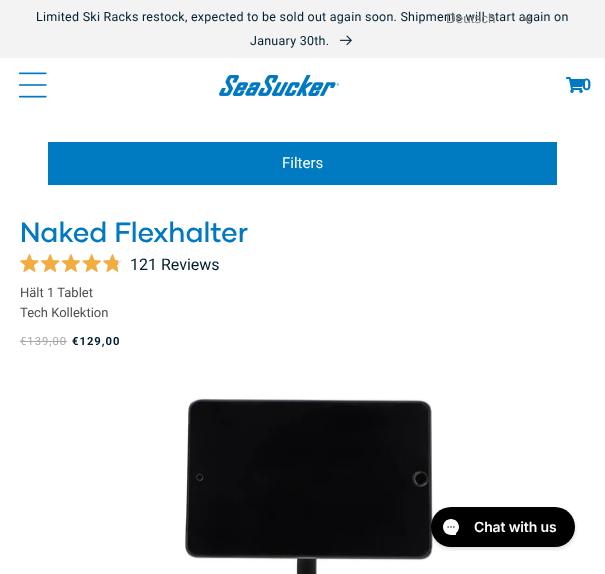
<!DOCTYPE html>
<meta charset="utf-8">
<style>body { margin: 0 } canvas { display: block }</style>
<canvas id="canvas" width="605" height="574"></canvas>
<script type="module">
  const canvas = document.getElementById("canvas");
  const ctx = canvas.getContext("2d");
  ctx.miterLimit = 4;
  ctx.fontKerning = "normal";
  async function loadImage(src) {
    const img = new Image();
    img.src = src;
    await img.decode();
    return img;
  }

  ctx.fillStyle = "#ffffff";
  ctx.fillRect(0, 0, 605, 574);
  ctx.fillStyle = "#f3f3f3";
  ctx.fillRect(0, 0, 605, 58);
  ctx.letterSpacing = "0.25px";
  ctx.font = "12.5px Roboto";
  ctx.fillStyle = "#011f31";
  ctx.fillText("Limited Ski Racks restock, expected to be sold out again soon. Shipments will start again on", 36, 21);
  ctx.fillText("January 30th.", 250, 45);
  ctx.drawImage(await loadImage("img1.png"), 340, 35, 12, 11);
  ctx.beginPath();
  ctx.moveTo(523, 16.5);
  ctx.lineTo(527, 20.5);
  ctx.lineTo(531, 16.5);
  ctx.strokeStyle = "#808080";
  ctx.lineWidth = 2;
  ctx.stroke();
  ctx.letterSpacing = "0px";
  ctx.font = "13.5px Liberation Sans";
  ctx.fillStyle = "#808080";
  ctx.fillText("Deutsch", 446, 23);
  ctx.drawImage(await loadImage("img2.png"), 18, 72, 29, 26);
  ctx.drawImage(await loadImage("img3.png"), 219, 75, 120, 21);
  ctx.drawImage(await loadImage("img4.png"), 566, 77, 18, 16);
  ctx.font = "bold 16px Roboto";
  ctx.fillStyle = "#0078c2";
  ctx.fillText("0", 582, 90);
  ctx.fillStyle = "#007bc2";
  ctx.fillRect(48, 142, 509, 43);
  ctx.font = "15px Roboto";
  ctx.fillStyle = "#ffffff";
  ctx.fillText("Filters", 282, 168);
  ctx.font = "600 28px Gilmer";
  ctx.fillStyle = "#0078c2";
  ctx.fillText("Naked Flexhalter", 20, 242);
  ctx.drawImage(await loadImage("img5.png"), 20, 254, 102, 18);
  ctx.drawImage(await loadImage("img6.png"), 20, 254, 98, 18);
  ctx.font = "16px Roboto";
  ctx.fillStyle = "#011f31";
  ctx.fillText("121 Reviews", 130, 270);
  ctx.font = "13px Roboto";
  ctx.fillStyle = "#4f4f4f";
  ctx.fillText("Hält 1 Tablet", 20, 297);
  ctx.fillText("Tech Kollektion", 20, 317);
  ctx.letterSpacing = "1px";
  ctx.font = "11.25px Roboto";
  ctx.fillStyle = "#a7a7a7";
  ctx.fillText("€139,00", 20, 345);
  ctx.fillRect(20, 341, 47, 1);
  ctx.font = "bold 11.25px Roboto";
  ctx.fillStyle = "#011f31";
  ctx.fillText("€129,00", 72, 345);
  ctx.drawImage(await loadImage("img7.png"), 184, 398, 249, 176);
  ctx.drawImage(await loadImage("img8.png"), 431, 507, 146, 44);
</script>
